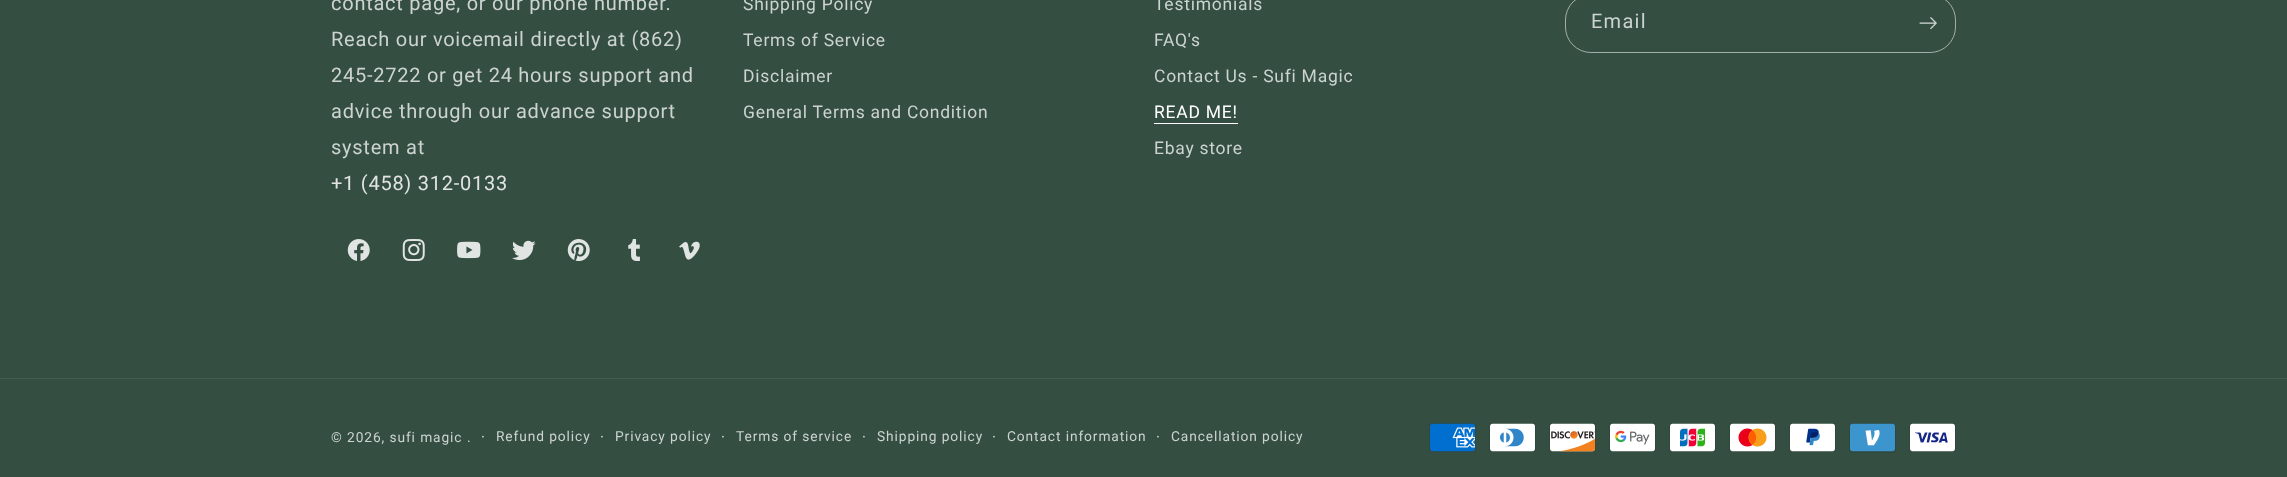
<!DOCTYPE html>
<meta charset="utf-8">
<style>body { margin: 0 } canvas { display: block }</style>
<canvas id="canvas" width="2287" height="477"></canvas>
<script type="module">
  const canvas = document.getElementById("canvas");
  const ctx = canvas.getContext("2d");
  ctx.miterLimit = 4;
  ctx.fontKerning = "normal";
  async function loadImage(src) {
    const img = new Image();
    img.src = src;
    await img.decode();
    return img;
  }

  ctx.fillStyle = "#344e41";
  ctx.fillRect(0, 0, 2287, 477);
  ctx.letterSpacing = "0.75px";
  ctx.font = "20px Roboto";
  ctx.fillStyle = "#ccd3d0";
  ctx.fillText("contact page, or our phone number.", 331, 10);
  ctx.fillText("Reach our voicemail directly at (862)", 331, 46);
  ctx.fillText("245-2722 or get 24 hours support and", 331, 82);
  ctx.fillText("advice through our advance support", 331, 118);
  ctx.fillText("system at", 331, 154);
  ctx.fillStyle = "#e1e4e3";
  ctx.fillText("+1 (458) 312-0133", 331, 190);
  ctx.drawImage(await loadImage("img1.png"), 347, 239, 23, 22);
  ctx.drawImage(await loadImage("img2.png"), 402, 239, 23, 22);
  ctx.drawImage(await loadImage("img3.png"), 457, 241, 24, 18);
  ctx.drawImage(await loadImage("img4.png"), 512, 240, 24, 21);
  ctx.drawImage(await loadImage("img5.png"), 567, 239, 23, 23);
  ctx.drawImage(await loadImage("img6.png"), 628, 239, 12, 22);
  ctx.drawImage(await loadImage("img7.png"), 679, 241, 21, 19);
  ctx.font = "17.5px Roboto";
  ctx.fillStyle = "#ccd3d0";
  ctx.fillText("Shipping Policy", 743, 10);
  ctx.fillText("Terms of Service", 743, 46);
  ctx.fillText("Disclaimer", 743, 82);
  ctx.fillText("General Terms and Condition", 743, 118);
  ctx.fillText("Testimonials", 1154, 10);
  ctx.fillText("FAQ's", 1154, 46);
  ctx.fillText("Contact Us - Sufi Magic", 1154, 82);
  ctx.fillStyle = "#ffffff";
  ctx.fillText("READ ME!", 1154, 118);
  ctx.fillRect(1154, 123, 84, 1);
  ctx.fillStyle = "#ccd3d0";
  ctx.fillText("Ebay store", 1154, 154);
  ctx.beginPath();
  ctx.roundRect(1565.5, -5.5, 390, 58, 25.5);
  ctx.strokeStyle = "#a4afaa";
  ctx.stroke();
  ctx.letterSpacing = "1.25px";
  ctx.font = "20px Roboto";
  ctx.fillText("Email", 1591, 28);
  ctx.drawImage(await loadImage("img8.png"), 1919, 17, 18, 13);
  ctx.fillStyle = "#445c50";
  ctx.fillRect(0, 378, 2287, 1);
  ctx.letterSpacing = "0.9px";
  ctx.font = "13.75px Roboto";
  ctx.fillStyle = "#ccd3d0";
  ctx.fillText("© 2026, sufi magic", 331, 442);
  ctx.fillText(".", 467, 442);
  ctx.font = "15px Roboto";
  ctx.fillText("·", 481, 442);
  ctx.font = "13.75px Roboto";
  ctx.fillText("Refund policy", 496, 441);
  ctx.font = "15px Roboto";
  ctx.fillText("·", 600, 442);
  ctx.font = "13.75px Roboto";
  ctx.fillText("Privacy policy", 615, 441);
  ctx.font = "15px Roboto";
  ctx.fillText("·", 721, 442);
  ctx.font = "13.75px Roboto";
  ctx.fillText("Terms of service", 736, 441);
  ctx.font = "15px Roboto";
  ctx.fillText("·", 862, 442);
  ctx.font = "13.75px Roboto";
  ctx.fillText("Shipping policy", 877, 441);
  ctx.font = "15px Roboto";
  ctx.fillText("·", 992, 442);
  ctx.font = "13.75px Roboto";
  ctx.fillText("Contact information", 1007, 441);
  ctx.font = "15px Roboto";
  ctx.fillText("·", 1156, 442);
  ctx.font = "13.75px Roboto";
  ctx.fillText("Cancellation policy", 1171, 441);
  ctx.drawImage(await loadImage("img9.png"), 1429, 423, 47, 29);
  ctx.drawImage(await loadImage("img10.png"), 1489, 423, 47, 29);
  ctx.drawImage(await loadImage("img11.png"), 1549, 423, 47, 29);
  ctx.drawImage(await loadImage("img12.png"), 1609, 423, 47, 29);
  ctx.drawImage(await loadImage("img13.png"), 1669, 423, 47, 29);
  ctx.drawImage(await loadImage("img14.png"), 1729, 423, 47, 29);
  ctx.drawImage(await loadImage("img15.png"), 1789, 423, 47, 29);
  ctx.drawImage(await loadImage("img16.png"), 1849, 423, 47, 30);
  ctx.drawImage(await loadImage("img17.png"), 1909, 423, 47, 29);
</script>
